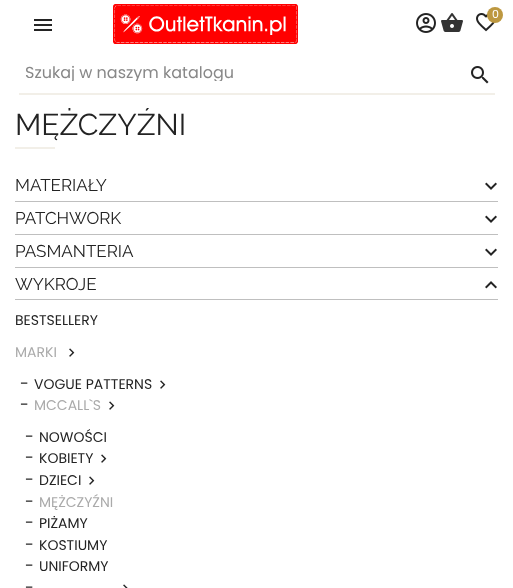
<!DOCTYPE html>
<meta charset="utf-8">
<style>body { margin: 0 } canvas { display: block }</style>
<canvas id="canvas" width="513" height="588"></canvas>
<script type="module">
  const canvas = document.getElementById("canvas");
  const ctx = canvas.getContext("2d");
  ctx.miterLimit = 4;
  ctx.fontKerning = "normal";
  async function loadImage(src) {
    const img = new Image();
    img.src = src;
    await img.decode();
    return img;
  }

  ctx.fillStyle = "#ffffff";
  ctx.fillRect(0, 0, 513, 588);
  ctx.font = "30px Raleway";
  ctx.fillStyle = "#232323";
  ctx.fillText("MĘŻCZYŹNI", 15, 135);
  ctx.fillStyle = "#ffffff";
  ctx.fillRect(68, 107, 82, 1);
  ctx.drawImage(await loadImage("img1.png"), 34, 19, 18, 12);
  ctx.drawImage(await loadImage("img2.png"), 113, 4, 185, 40);
  ctx.drawImage(await loadImage("img3.png"), 416, 13, 20, 20);
  ctx.drawImage(await loadImage("img4.png"), 441, 13, 22, 19);
  ctx.drawImage(await loadImage("img5.png"), 476, 13, 19, 19);
  ctx.fillStyle = "#bd9840";
  ctx.beginPath();
  ctx.arc(495, 15, 8, 0, Math.PI * 2);
  ctx.fill();
  ctx.font = "11px Poppins";
  ctx.fillStyle = "#ffffff";
  ctx.fillText("0", 492, 18);
  ctx.fillStyle = "#f2efe8";
  ctx.fillRect(19, 93, 476, 2);
  ctx.save();
  ctx.beginPath();
  ctx.rect(25, 65, 463, 16);
  ctx.clip();
  ctx.font = "16px Poppins";
  ctx.fillStyle = "#888888";
  ctx.fillText("Szukaj w naszym katalogu", 25, 78);
  ctx.restore();
  ctx.drawImage(await loadImage("img6.png"), 471, 66, 18, 18);
  ctx.fillRect(15, 147, 40, 2);
  ctx.fillStyle = "#bfbfbf";
  ctx.fillRect(15, 201, 483, 1);
  ctx.font = "17px Raleway";
  ctx.fillStyle = "#232323";
  ctx.fillText("MATERIAŁY", 15, 191);
  ctx.drawImage(await loadImage("img7.png"), 485, 182, 12, 8);
  ctx.fillStyle = "#bfbfbf";
  ctx.fillRect(15, 234, 483, 1);
  ctx.fillStyle = "#232323";
  ctx.fillText("PATCHWORK", 15, 224);
  ctx.drawImage(await loadImage("img7.png"), 485, 215, 12, 8);
  ctx.fillStyle = "#bfbfbf";
  ctx.fillRect(15, 267, 483, 1);
  ctx.fillStyle = "#232323";
  ctx.fillText("PASMANTERIA", 15, 257);
  ctx.drawImage(await loadImage("img7.png"), 485, 248, 12, 8);
  ctx.fillStyle = "#bfbfbf";
  ctx.fillRect(15, 299, 483, 1);
  ctx.fillStyle = "#232323";
  ctx.fillText("WYKROJE", 15, 290);
  ctx.drawImage(await loadImage("img8.png"), 485, 281, 12, 8);
  ctx.font = "14px Poppins";
  ctx.fillText("BESTSELLERY", 15, 325);
  ctx.fillStyle = "#aaaaaa";
  ctx.fillText("MARKI", 15, 357);
  ctx.drawImage(await loadImage("img9.png"), 69, 348, 6, 9);
  ctx.font = "16px Poppins";
  ctx.fillStyle = "#232323";
  ctx.fillText("-", 20, 389);
  ctx.font = "14px Poppins";
  ctx.fillText("VOGUE PATTERNS", 34, 389);
  ctx.drawImage(await loadImage("img9.png"), 160, 380, 6, 9);
  ctx.font = "16px Poppins";
  ctx.fillText("-", 20, 410);
  ctx.font = "14px Poppins";
  ctx.fillStyle = "#aaaaaa";
  ctx.fillText("MCCALL`S", 34, 410);
  ctx.drawImage(await loadImage("img9.png"), 109, 401, 6, 9);
  ctx.font = "16px Poppins";
  ctx.fillStyle = "#232323";
  ctx.fillText("-", 25, 442);
  ctx.font = "14px Poppins";
  ctx.fillText("NOWOŚCI", 39, 442);
  ctx.font = "16px Poppins";
  ctx.fillText("-", 25, 463);
  ctx.font = "14px Poppins";
  ctx.fillText("KOBIETY", 39, 463);
  ctx.drawImage(await loadImage("img9.png"), 101, 454, 6, 9);
  ctx.font = "16px Poppins";
  ctx.fillText("-", 25, 485);
  ctx.font = "14px Poppins";
  ctx.fillText("DZIECI", 39, 485);
  ctx.drawImage(await loadImage("img9.png"), 89, 476, 6, 9);
  ctx.font = "16px Poppins";
  ctx.fillText("-", 25, 507);
  ctx.font = "14px Poppins";
  ctx.fillStyle = "#aaaaaa";
  ctx.fillText("MĘŻCZYŹNI", 39, 507);
  ctx.font = "16px Poppins";
  ctx.fillStyle = "#232323";
  ctx.fillText("-", 25, 528);
  ctx.font = "14px Poppins";
  ctx.fillText("PIŻAMY", 39, 528);
  ctx.font = "16px Poppins";
  ctx.fillText("-", 25, 550);
  ctx.font = "14px Poppins";
  ctx.fillText("KOSTIUMY", 39, 550);
  ctx.font = "16px Poppins";
  ctx.fillText("-", 25, 571);
  ctx.font = "14px Poppins";
  ctx.fillText("UNIFORMY", 39, 571);
  ctx.font = "16px Poppins";
  ctx.fillText("-", 25, 593);
  ctx.drawImage(await loadImage("img10.png"), 123, 584, 5, 4);
</script>
